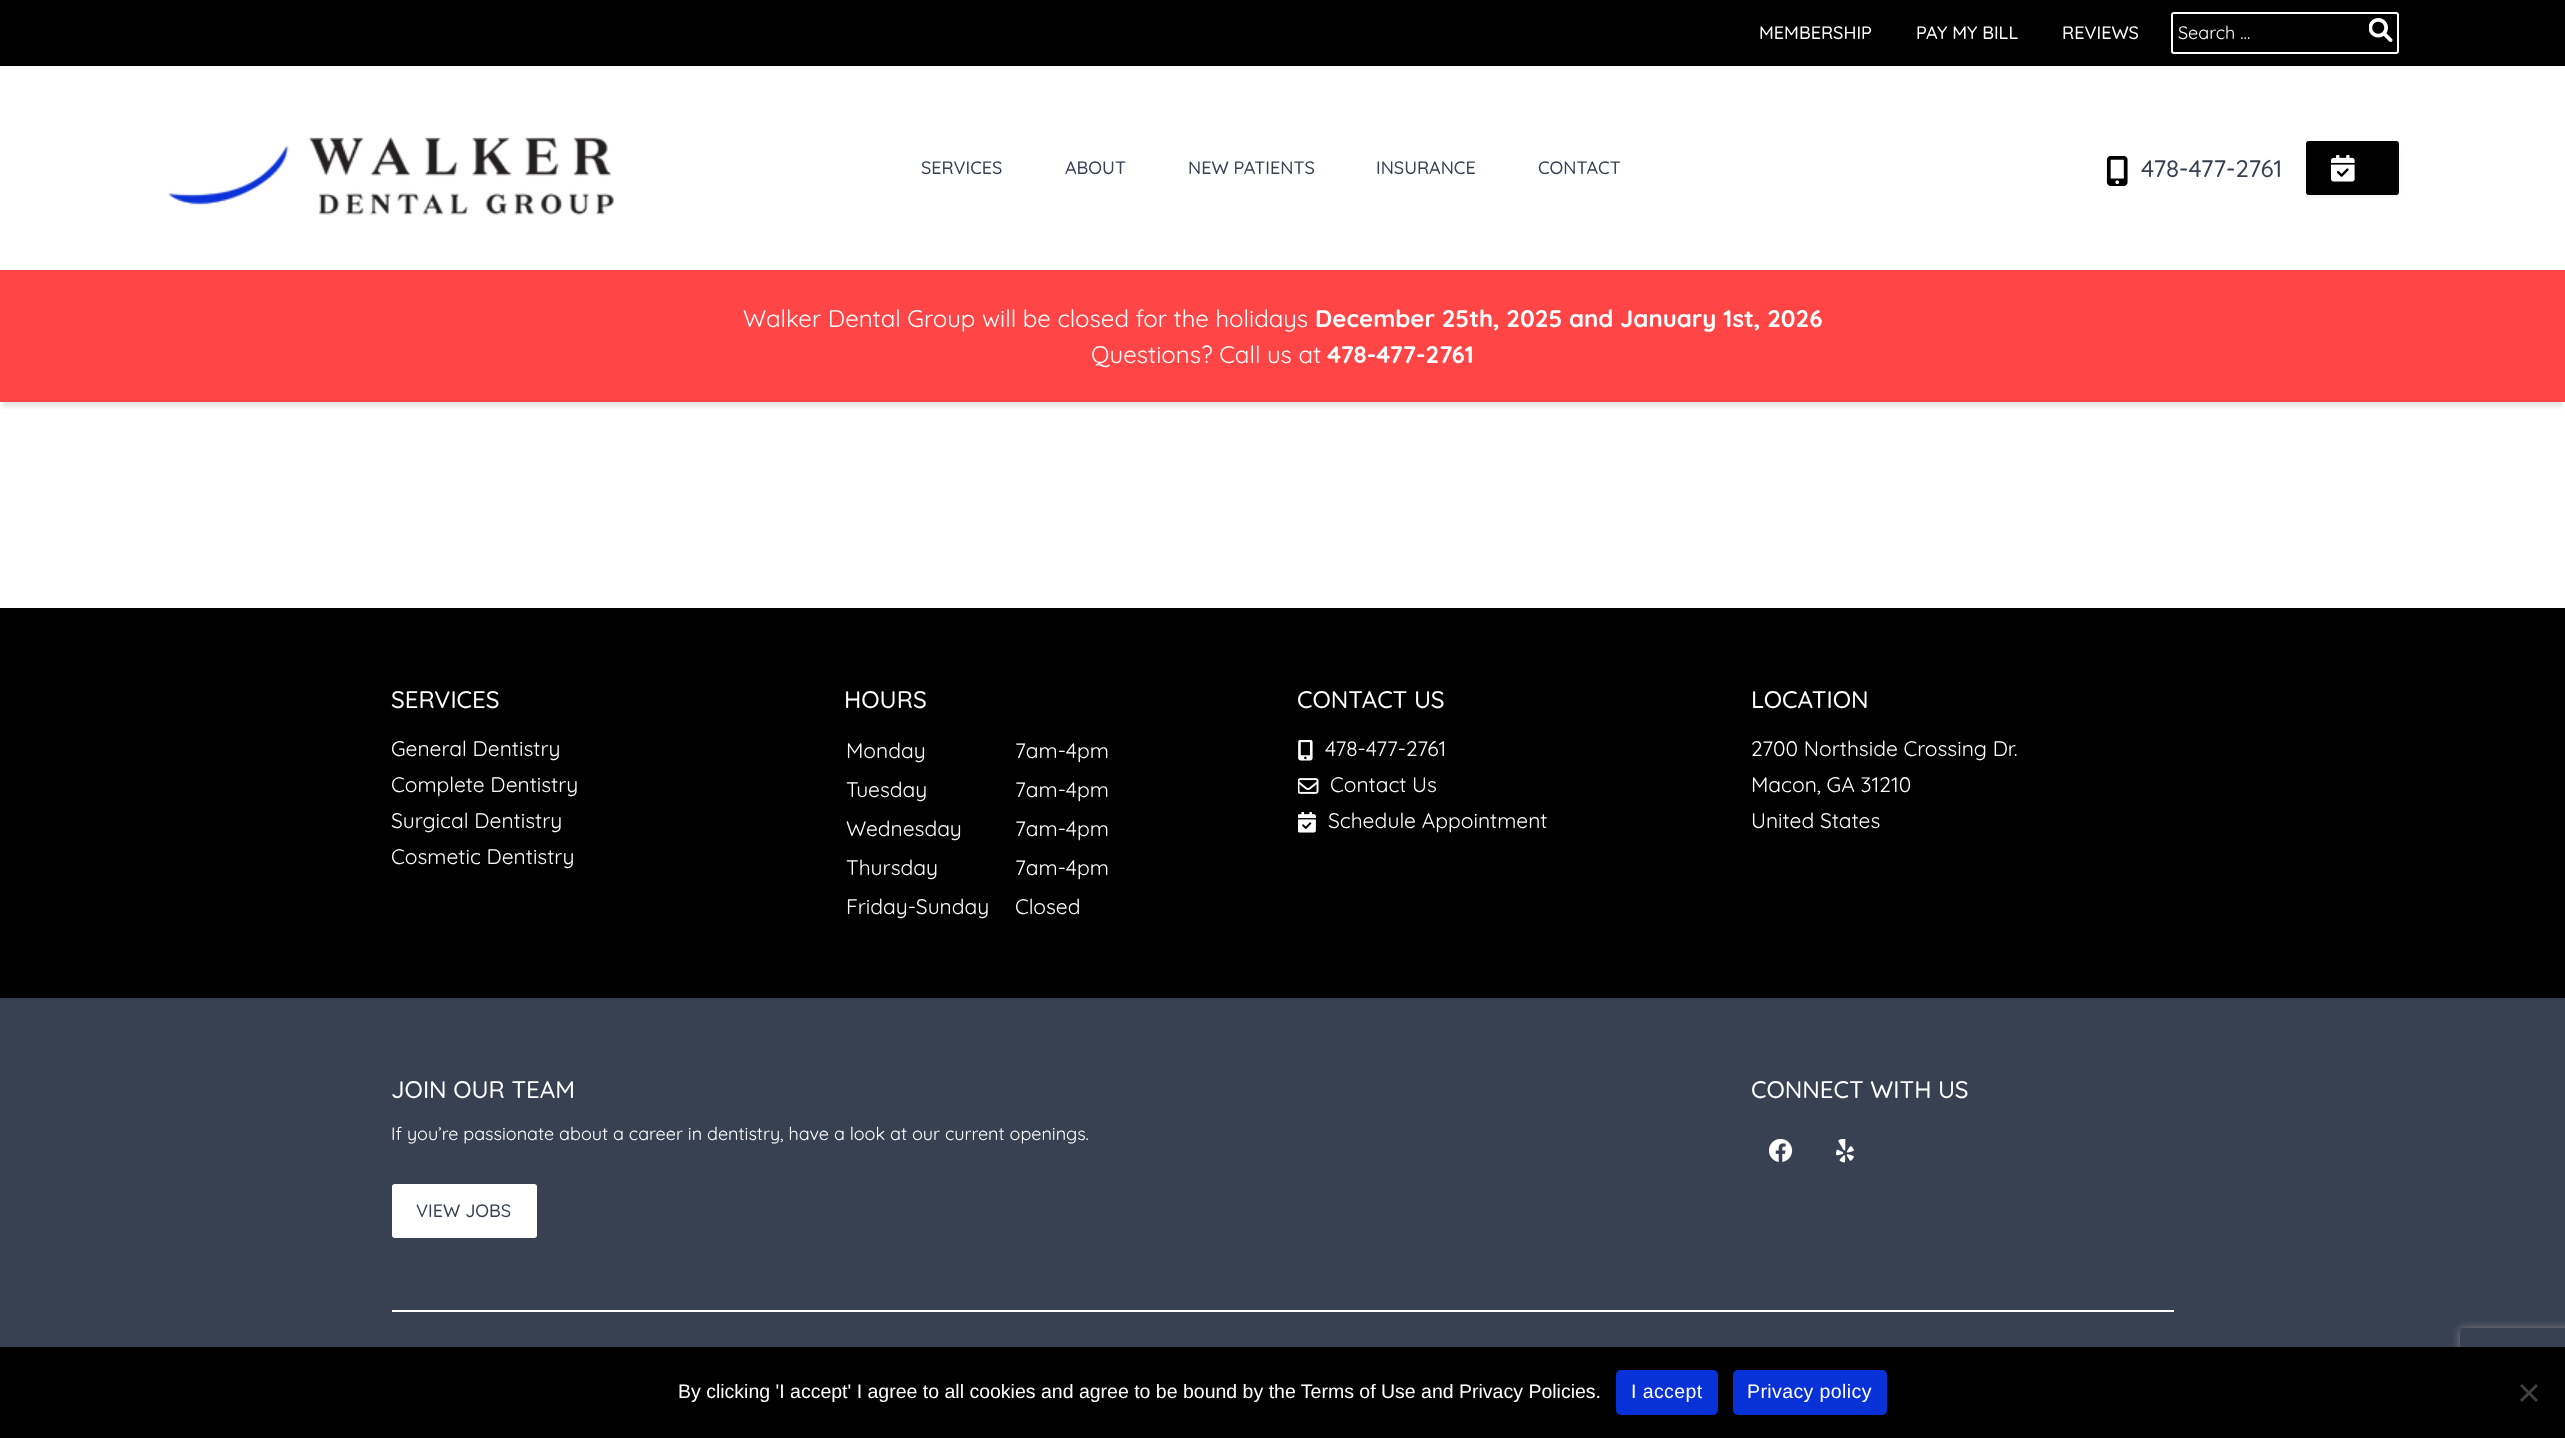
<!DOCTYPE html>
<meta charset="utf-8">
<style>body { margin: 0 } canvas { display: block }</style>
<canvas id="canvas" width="2565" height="1438"></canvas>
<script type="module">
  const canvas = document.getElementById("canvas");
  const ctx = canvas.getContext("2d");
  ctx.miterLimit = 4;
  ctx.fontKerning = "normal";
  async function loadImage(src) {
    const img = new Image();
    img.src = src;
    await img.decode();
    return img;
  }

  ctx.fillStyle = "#ffffff";
  ctx.fillRect(0, 0, 2565, 1438);
  ctx.save();
  ctx.beginPath();
  ctx.rect(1, 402, 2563, 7);
  ctx.clip();
  ctx.fillStyle = "rgba(0, 0, 0, 0.1)";
  ctx.filter = "blur(2px)";
  ctx.beginPath();
  ctx.rect(3, 11, 2559, 396);
  ctx.fill();
  ctx.filter = "none";
  ctx.restore();
  ctx.fillStyle = "#000000";
  ctx.fillRect(0, 0, 2565, 66);
  ctx.font = "500 18px Quicksand";
  ctx.fillStyle = "#ffffff";
  ctx.fillText("MEMBERSHIP", 1759, 39);
  ctx.fillText("PAY MY BILL", 1916, 39);
  ctx.fillText("REVIEWS", 2062, 39);
  ctx.beginPath();
  ctx.roundRect(2172, 13, 226, 40, 2);
  ctx.strokeStyle = "#ffffff";
  ctx.lineWidth = 2;
  ctx.stroke();
  ctx.font = "18px Quicksand";
  ctx.fillText("Search …", 2178, 39);
  ctx.drawImage(await loadImage("img1.png"), 2369, 18, 24, 24);
  ctx.drawImage(await loadImage("img2.png"), 168, 136, 446, 79);
  ctx.font = "500 18px Quicksand";
  ctx.fillStyle = "#374151";
  ctx.fillText("SERVICES", 921, 174);
  ctx.fillText("ABOUT", 1065, 174);
  ctx.fillText("NEW PATIENTS", 1188, 174);
  ctx.fillText("INSURANCE", 1376, 174);
  ctx.fillText("CONTACT", 1538, 174);
  ctx.drawImage(await loadImage("img3.png"), 2106, 156, 22, 30);
  ctx.font = "500 24px Quicksand";
  ctx.fillText("478-477-2761", 2141, 177);
  ctx.fillStyle = "rgba(0, 0, 0, 0.05)";
  ctx.filter = "blur(1.5px)";
  ctx.beginPath();
  ctx.roundRect(2306, 143, 93, 54, 3);
  ctx.fill();
  ctx.filter = "none";
  ctx.fillStyle = "#000000";
  ctx.beginPath();
  ctx.roundRect(2306, 141, 93, 54, 3);
  ctx.fill();
  ctx.drawImage(await loadImage("img4.png"), 2331, 155, 24, 27);
  ctx.fillStyle = "#ff4545";
  ctx.fillRect(0, 270, 2565, 132);
  ctx.font = "24px Quicksand";
  ctx.fillStyle = "#ffffff";
  ctx.fillText("Walker Dental Group will be closed for the holidays", 743, 327);
  ctx.font = "bold 24px Quicksand";
  ctx.fillText("December 25th, 2025 and January 1st, 2026", 1315, 327);
  ctx.font = "24px Quicksand";
  ctx.fillText("Questions? Call us at", 1091, 363);
  ctx.font = "bold 24px Quicksand";
  ctx.fillText("478-477-2761", 1327, 363);
  ctx.fillStyle = "#000000";
  ctx.fillRect(0, 608, 2565, 390);
  ctx.font = "500 24px Quicksand";
  ctx.fillStyle = "#ffffff";
  ctx.fillText("SERVICES", 391, 708);
  ctx.font = "21px Quicksand";
  ctx.fillText("General Dentistry", 391, 756);
  ctx.fillText("Complete Dentistry", 391, 792);
  ctx.fillText("Surgical Dentistry", 391, 828);
  ctx.fillText("Cosmetic Dentistry", 391, 864);
  ctx.font = "500 24px Quicksand";
  ctx.fillText("HOURS", 844, 708);
  ctx.font = "21px Quicksand";
  ctx.fillText("Monday", 846, 758);
  ctx.fillText("7am-4pm", 1015, 758);
  ctx.fillText("Tuesday", 846, 797);
  ctx.fillText("7am-4pm", 1015, 797);
  ctx.fillText("Wednesday", 846, 836);
  ctx.fillText("7am-4pm", 1015, 836);
  ctx.fillText("Thursday", 846, 875);
  ctx.fillText("7am-4pm", 1015, 875);
  ctx.fillText("Friday-Sunday", 846, 914);
  ctx.fillText("Closed", 1015, 914);
  ctx.font = "500 24px Quicksand";
  ctx.fillText("CONTACT US", 1297, 708);
  ctx.drawImage(await loadImage("img5.png"), 1298, 740, 15, 21);
  ctx.font = "21px Quicksand";
  ctx.fillText("478-477-2761", 1325, 756);
  ctx.drawImage(await loadImage("img6.png"), 1298, 778, 21, 16);
  ctx.fillText("Contact Us", 1330, 792);
  ctx.drawImage(await loadImage("img7.png"), 1298, 812, 18, 21);
  ctx.fillText("Schedule Appointment", 1328, 828);
  ctx.font = "500 24px Quicksand";
  ctx.fillText("LOCATION", 1751, 708);
  ctx.font = "21px Quicksand";
  ctx.fillText("2700 Northside Crossing Dr.", 1751, 756);
  ctx.fillText("Macon, GA 31210", 1751, 792);
  ctx.fillText("United States", 1751, 828);
  ctx.fillStyle = "#374151";
  ctx.fillRect(0, 998, 2565, 349);
  ctx.font = "500 24px Quicksand";
  ctx.fillStyle = "#ffffff";
  ctx.fillText("JOIN OUR TEAM", 391, 1098);
  ctx.font = "18px Quicksand";
  ctx.fillText("If you’re passionate about a career in dentistry, have a look at our current openings.", 391, 1140);
  ctx.beginPath();
  ctx.roundRect(392, 1184, 145, 54, 3);
  ctx.fill();
  ctx.font = "500 18px Quicksand";
  ctx.fillStyle = "#374151";
  ctx.fillText("VIEW JOBS", 416, 1217);
  ctx.font = "500 24px Quicksand";
  ctx.fillStyle = "#ffffff";
  ctx.fillText("CONNECT WITH US", 1751, 1098);
  ctx.drawImage(await loadImage("img8.png"), 1769, 1139, 24, 23);
  ctx.drawImage(await loadImage("img9.png"), 1836, 1139, 18, 24);
  ctx.fillRect(392, 1310, 1782, 2);
  ctx.save();
  ctx.beginPath();
  ctx.moveTo(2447, 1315);
  ctx.lineTo(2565, 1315);
  ctx.lineTo(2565, 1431);
  ctx.lineTo(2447, 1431);
  ctx.closePath();
  ctx.moveTo(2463, 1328);
  ctx.lineTo(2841, 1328);
  ctx.bezierCurveTo(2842.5, 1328, 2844, 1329.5, 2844, 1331);
  ctx.lineTo(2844, 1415);
  ctx.bezierCurveTo(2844, 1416.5, 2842.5, 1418, 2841, 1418);
  ctx.lineTo(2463, 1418);
  ctx.bezierCurveTo(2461.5, 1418, 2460, 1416.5, 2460, 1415);
  ctx.lineTo(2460, 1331);
  ctx.bezierCurveTo(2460, 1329.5, 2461.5, 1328, 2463, 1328);
  ctx.closePath();
  ctx.clip("evenodd");
  ctx.fillStyle = "#808080";
  ctx.filter = "blur(4px)";
  ctx.beginPath();
  ctx.roundRect(2460, 1328, 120, 90, 3);
  ctx.fill();
  ctx.filter = "none";
  ctx.restore();
  ctx.fillStyle = "#000000";
  ctx.fillRect(0, 1347, 2565, 91);
  ctx.font = "19.5px Liberation Sans";
  ctx.fillStyle = "#ffffff";
  ctx.fillText("By clicking 'I accept' I agree to all cookies and agree to be bound by the Terms of Use and Privacy Policies.", 678, 1398);
  ctx.fillStyle = "#0831d8";
  ctx.beginPath();
  ctx.roundRect(1616, 1370, 102, 45, 5);
  ctx.fill();
  ctx.letterSpacing = "0.4px";
  ctx.fillStyle = "#ffffff";
  ctx.fillText("I accept", 1631, 1398);
  ctx.fillStyle = "#0831d8";
  ctx.beginPath();
  ctx.roundRect(1733, 1370, 154, 45, 5);
  ctx.fill();
  ctx.fillStyle = "#ffffff";
  ctx.fillText("Privacy policy", 1747, 1398);
  ctx.fillStyle = "#404040";
  ctx.beginPath();
  ctx.moveTo(2536, 1384);
  ctx.lineTo(2538, 1386);
  ctx.lineTo(2522, 1402);
  ctx.lineTo(2520, 1400);
  ctx.closePath();
  ctx.fill();
  ctx.beginPath();
  ctx.moveTo(2520, 1386);
  ctx.lineTo(2522, 1384);
  ctx.lineTo(2538, 1400);
  ctx.lineTo(2536, 1402);
  ctx.closePath();
  ctx.fill();
</script>
